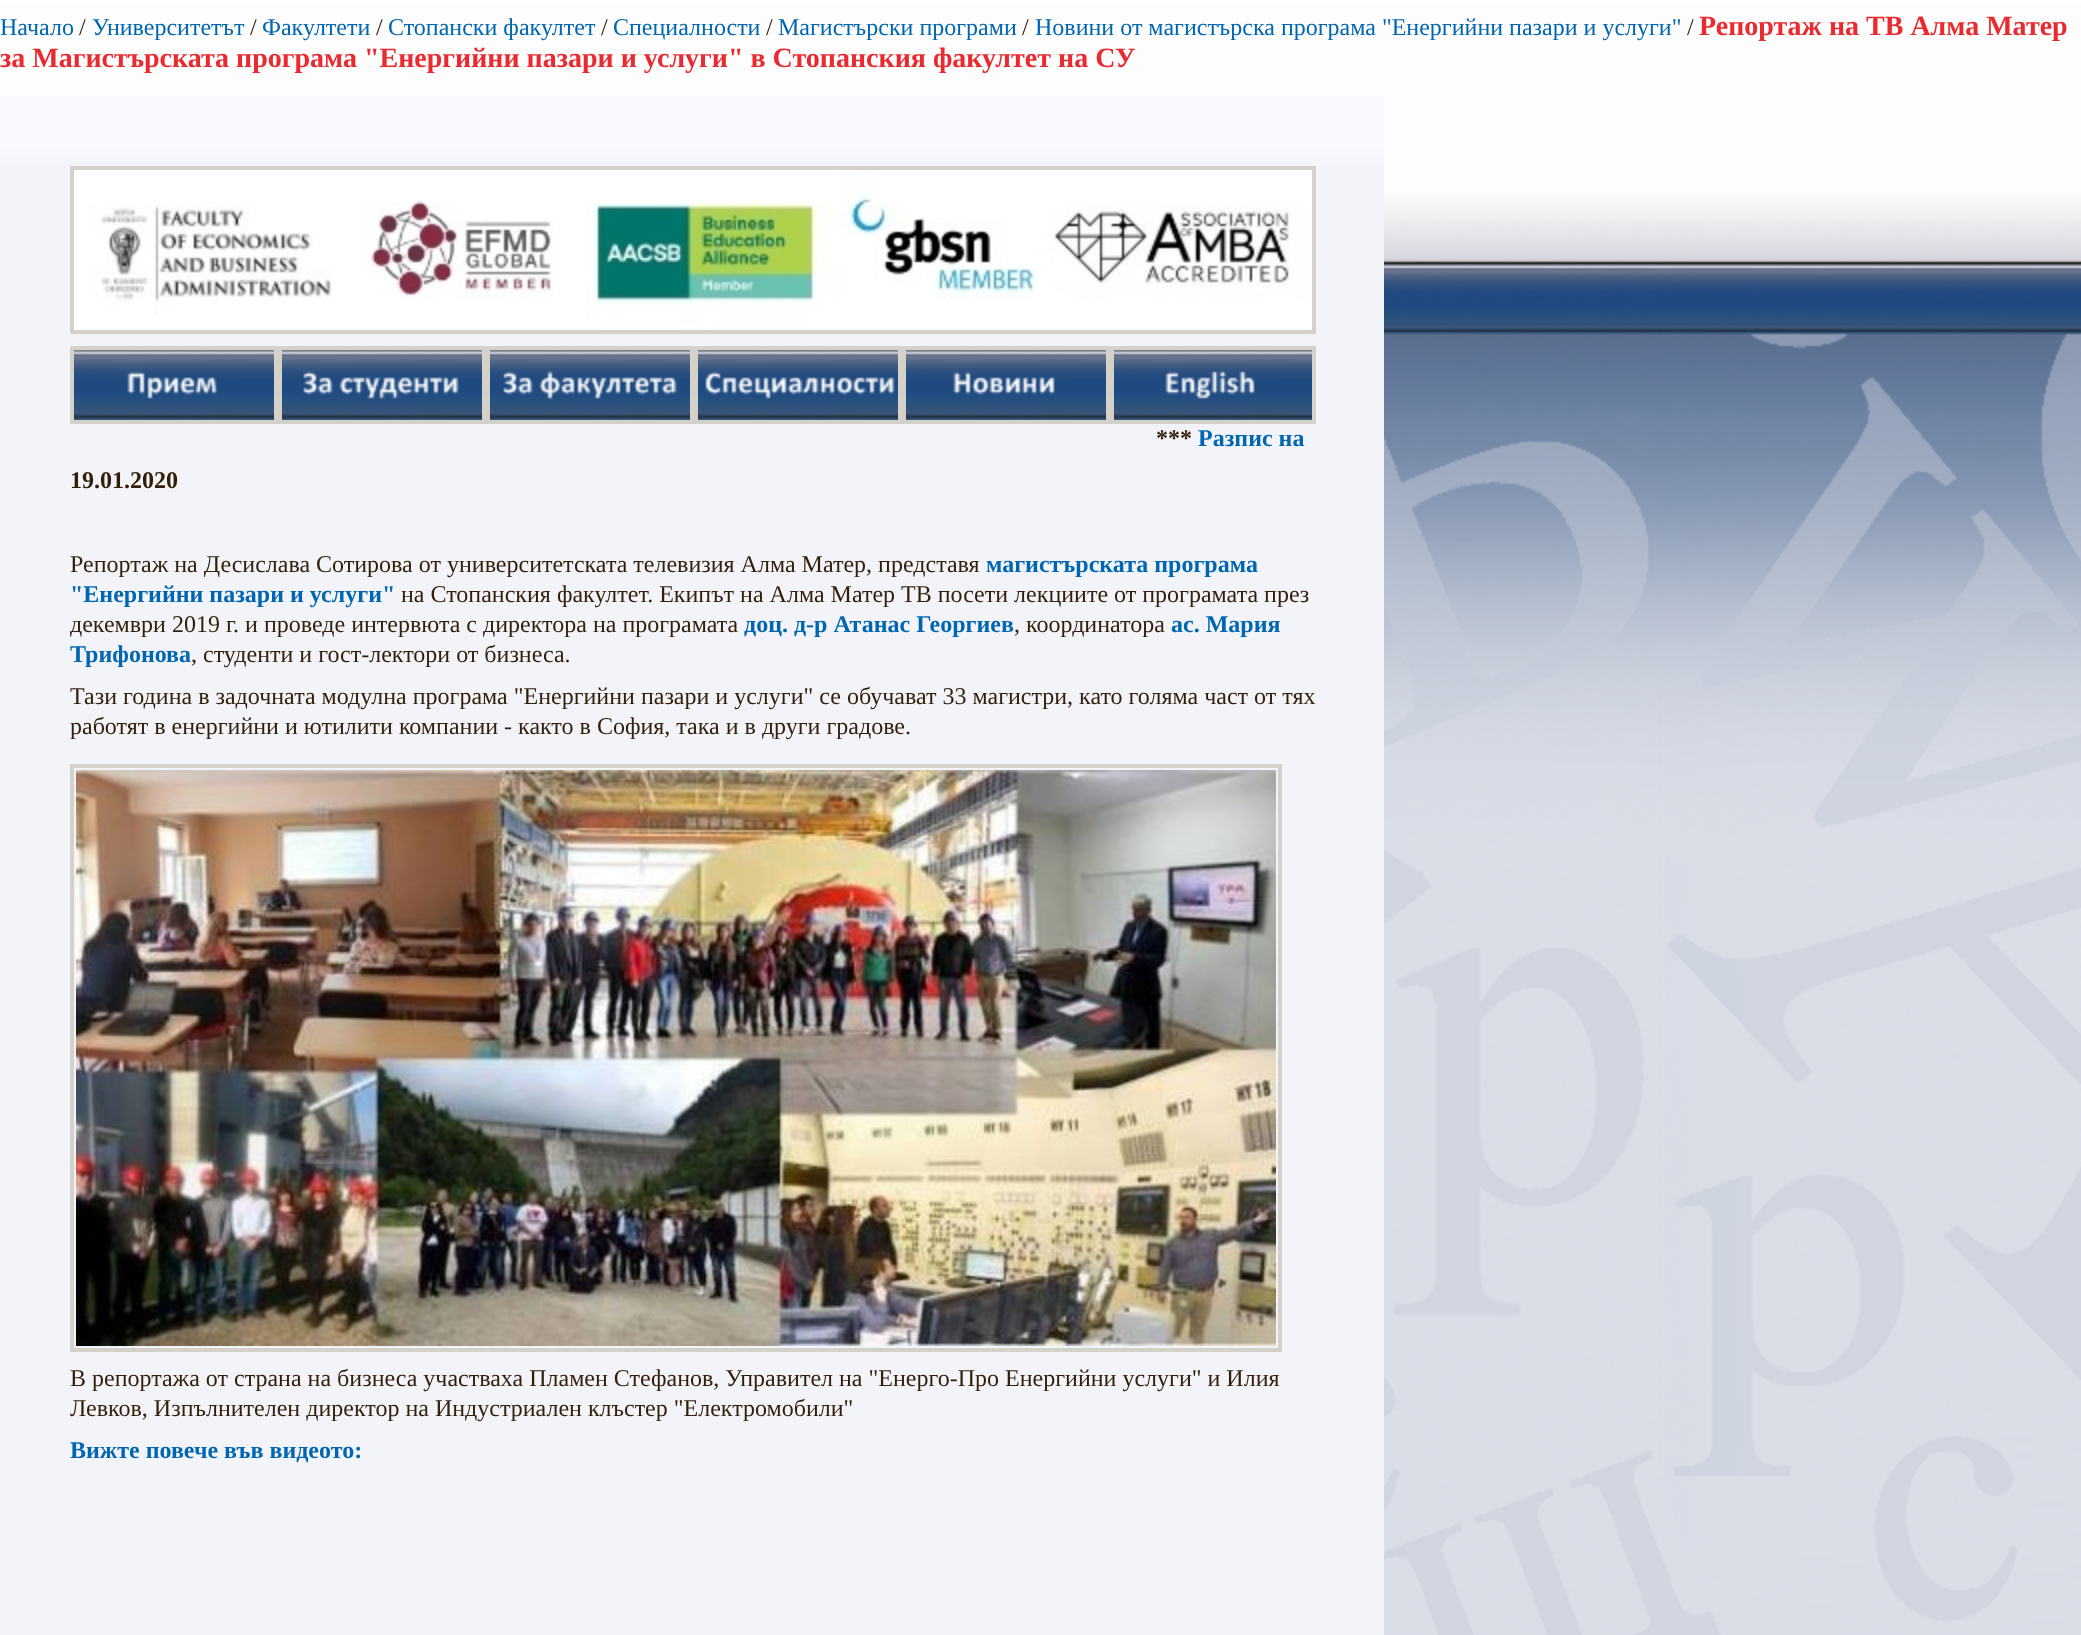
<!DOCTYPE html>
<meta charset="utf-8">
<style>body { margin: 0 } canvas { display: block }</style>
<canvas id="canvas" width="2081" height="1635"></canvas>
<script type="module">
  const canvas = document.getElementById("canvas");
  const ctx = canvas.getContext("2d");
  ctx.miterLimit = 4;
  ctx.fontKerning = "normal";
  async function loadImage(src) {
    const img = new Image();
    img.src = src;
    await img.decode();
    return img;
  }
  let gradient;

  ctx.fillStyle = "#ffffff";
  ctx.fillRect(0, 0, 2081, 1635);
  ctx.drawImage(await loadImage("img1.png"), 0, 0, 2081, 1635);
  ctx.font = "24px Liberation Serif";
  ctx.fillStyle = "#0066b1";
  ctx.fillText("Начало", 0, 35);
  ctx.fillStyle = "#331f09";
  ctx.fillText("/", 79, 35);
  ctx.fillStyle = "#0066b1";
  ctx.fillText("Университетът", 92, 35);
  ctx.fillStyle = "#331f09";
  ctx.fillText("/", 250, 35);
  ctx.fillStyle = "#0066b1";
  ctx.fillText("Факултети", 262, 35);
  ctx.fillStyle = "#331f09";
  ctx.fillText("/", 376, 35);
  ctx.fillStyle = "#0066b1";
  ctx.fillText("Стопански факултет", 388, 35);
  ctx.fillStyle = "#331f09";
  ctx.fillText("/", 601, 35);
  ctx.fillStyle = "#0066b1";
  ctx.fillText("Специалности", 613, 35);
  ctx.fillStyle = "#331f09";
  ctx.fillText("/", 766, 35);
  ctx.fillStyle = "#0066b1";
  ctx.fillText("Магистърски програми", 778, 35);
  ctx.fillStyle = "#331f09";
  ctx.fillText("/", 1022, 35);
  ctx.fillStyle = "#0066b1";
  ctx.fillText("Новини от магистърска програма \"Енергийни пазари и услуги\"", 1035, 35);
  ctx.fillStyle = "#331f09";
  ctx.fillText("/", 1687, 35);
  ctx.font = "bold 28px Liberation Serif";
  ctx.fillStyle = "#ea2a2f";
  ctx.fillText("Репортаж на ТВ Алма Матер", 1699, 35);
  ctx.fillText("за Магистърската програма \"Енергийни пазари и услуги\" в Стопанския факултет на СУ", 0, 67);
  gradient = ctx.createLinearGradient(692, 96, 692, 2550);
  gradient.addColorStop(0.02, "#f9faff");
  gradient.addColorStop(0.03, "#f3f4f9");
  ctx.fillStyle = gradient;
  ctx.fillRect(0, 96, 1384, 1539);
  ctx.strokeStyle = "#d4d2c8";
  ctx.lineWidth = 4;
  ctx.strokeRect(72, 168, 1242, 164);
  ctx.drawImage(await loadImage("img2.png"), 74, 170, 1238, 160);
  ctx.strokeRect(72, 348, 204, 74);
  ctx.drawImage(await loadImage("img3.png"), 74, 350, 200, 70);
  ctx.strokeRect(280, 348, 204, 74);
  ctx.drawImage(await loadImage("img4.png"), 282, 350, 200, 70);
  ctx.strokeRect(488, 348, 204, 74);
  ctx.drawImage(await loadImage("img5.png"), 490, 350, 200, 70);
  ctx.strokeRect(696, 348, 204, 74);
  ctx.drawImage(await loadImage("img6.png"), 698, 350, 200, 70);
  ctx.strokeRect(904, 348, 204, 74);
  ctx.drawImage(await loadImage("img7.png"), 906, 350, 200, 70);
  ctx.strokeRect(1112, 348, 202, 74);
  ctx.drawImage(await loadImage("img8.png"), 1114, 350, 198, 70);
  ctx.font = "bold 24px Liberation Serif";
  ctx.fillStyle = "#331f09";
  ctx.fillText("***", 1156, 446);
  ctx.fillStyle = "#0066b1";
  ctx.fillText("Разпис на", 1198, 446);
  ctx.fillStyle = "#331f09";
  ctx.fillText("19.01.2020", 70, 488);
  ctx.font = "24px Liberation Serif";
  ctx.fillText("Репортаж на Десислава Сотирова от университетската телевизия Алма Матер, представя", 70, 572);
  ctx.font = "bold 24px Liberation Serif";
  ctx.fillStyle = "#0066b1";
  ctx.fillText("магистърската програма", 986, 572);
  ctx.fillText("\"Енергийни пазари и услуги\"", 70, 602);
  ctx.font = "24px Liberation Serif";
  ctx.fillStyle = "#331f09";
  ctx.fillText("на Стопанския факултет. Екипът на Алма Матер ТВ посети лекциите от програмата през", 401, 602);
  ctx.fillText("декември 2019 г. и проведе интервюта с директора на програмата", 70, 632);
  ctx.font = "bold 24px Liberation Serif";
  ctx.fillStyle = "#0066b1";
  ctx.fillText("доц. д-р Атанас Георгиев", 744, 632);
  ctx.font = "24px Liberation Serif";
  ctx.fillStyle = "#331f09";
  ctx.fillText(", координатора", 1014, 632);
  ctx.font = "bold 24px Liberation Serif";
  ctx.fillStyle = "#0066b1";
  ctx.fillText("ас. Мария", 1171, 632);
  ctx.fillText("Трифонова", 70, 662);
  ctx.font = "24px Liberation Serif";
  ctx.fillStyle = "#331f09";
  ctx.fillText(", студенти и гост-лектори от бизнеса.", 191, 662);
  ctx.fillText("Тази година в задочната модулна програма \"Енергийни пазари и услуги\" се обучават 33 магистри, като голяма част от тях", 70, 704);
  ctx.fillText("работят в енергийни и ютилити компании - както в София, така и в други градове.", 70, 734);
  ctx.strokeRect(72, 766, 1208, 584);
  ctx.drawImage(await loadImage("img9.png"), 76, 770, 1200, 576);
  ctx.fillText("В репортажа от страна на бизнеса участваха Пламен Стефанов, Управител на \"Енерго-Про Енергийни услуги\" и Илия", 70, 1386);
  ctx.fillText("Левков, Изпълнителен директор на Индустриален клъстер \"Електромобили\"", 70, 1416);
  ctx.font = "bold 24px Liberation Serif";
  ctx.fillStyle = "#0066b1";
  ctx.fillText("Вижте повече във видеото:", 70, 1458);
</script>
